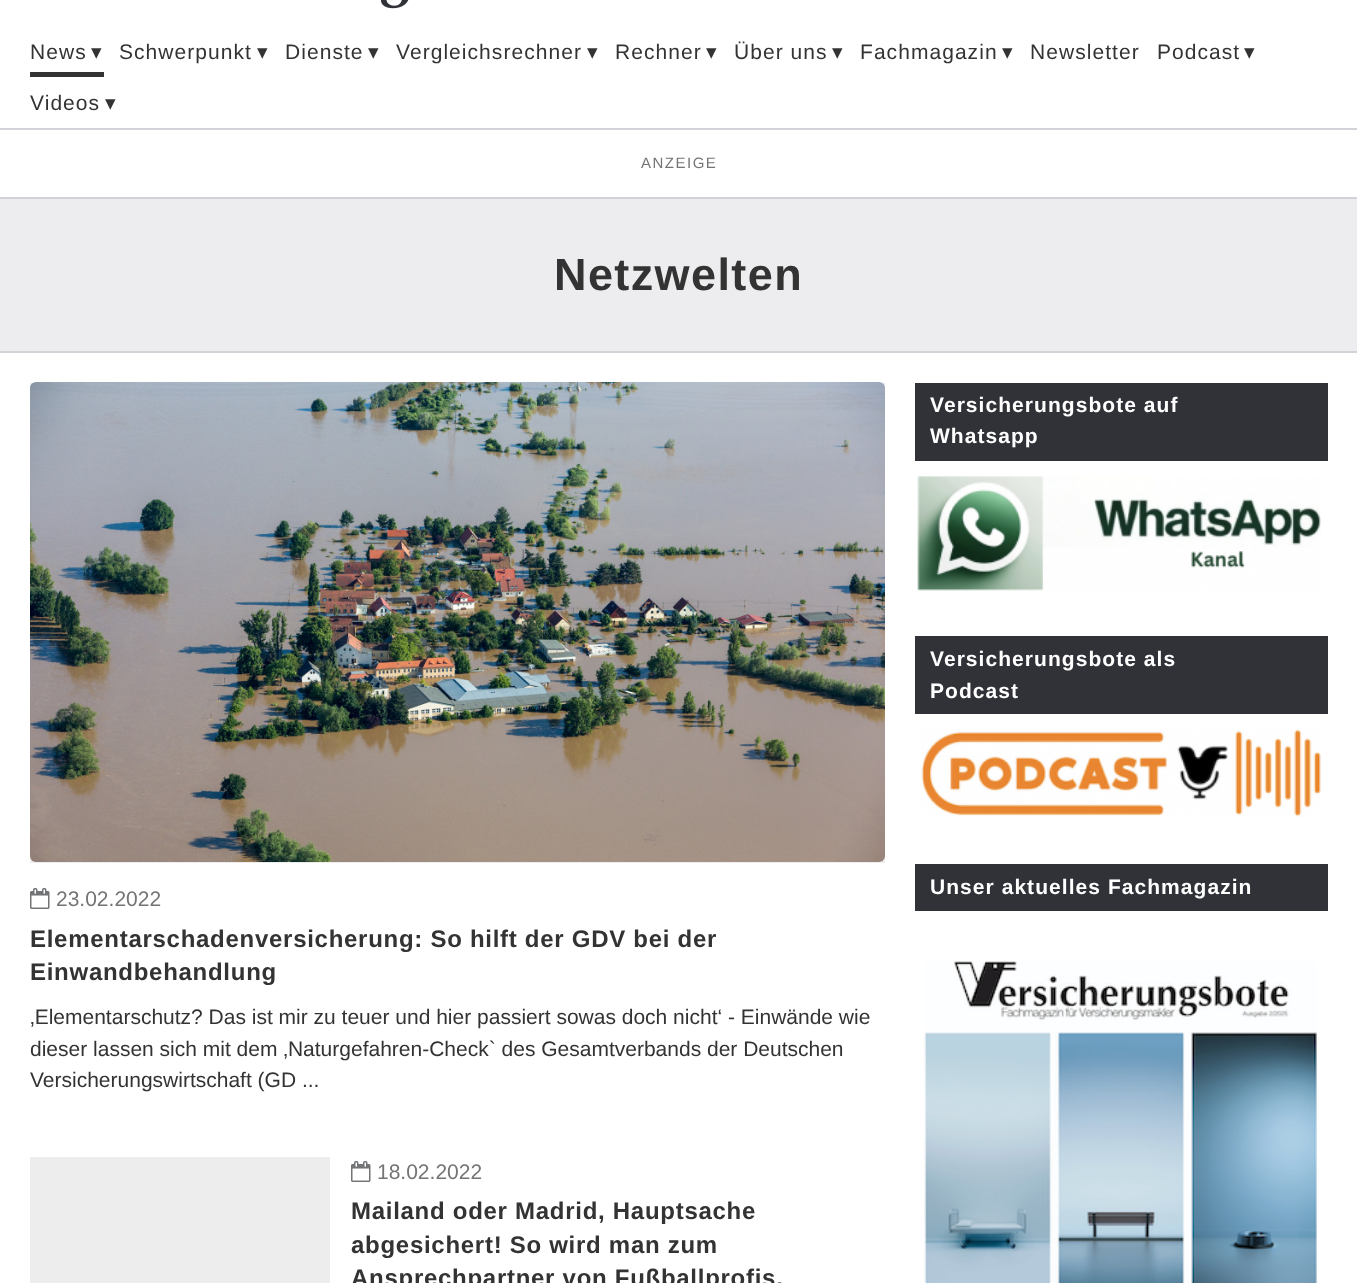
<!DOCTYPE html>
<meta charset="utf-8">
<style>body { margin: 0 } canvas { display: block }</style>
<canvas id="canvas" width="1357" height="1283"></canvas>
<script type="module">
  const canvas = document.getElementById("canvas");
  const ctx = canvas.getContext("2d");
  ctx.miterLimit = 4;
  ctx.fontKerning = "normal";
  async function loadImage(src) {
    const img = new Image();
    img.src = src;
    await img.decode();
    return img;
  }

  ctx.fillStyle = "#ffffff";
  ctx.fillRect(0, 0, 1357, 1283);
  ctx.fillStyle = "#d2d2d9";
  ctx.fillRect(0, 128, 1357, 2);
  ctx.drawImage(await loadImage("img1.png"), 380, 0, 29, 9);
  ctx.fillStyle = "#333333";
  ctx.fillRect(30, 72, 74, 5);
  ctx.letterSpacing = "1.05px";
  ctx.font = "21px Liberation Sans";
  ctx.fillText("News", 30, 59);
  ctx.font = "21px DejaVu Sans";
  ctx.fillText("▾", 91, 59);
  ctx.font = "21px Liberation Sans";
  ctx.fillText("Schwerpunkt", 119, 59);
  ctx.font = "21px DejaVu Sans";
  ctx.fillText("▾", 257, 59);
  ctx.font = "21px Liberation Sans";
  ctx.fillText("Dienste", 285, 59);
  ctx.font = "21px DejaVu Sans";
  ctx.fillText("▾", 368, 59);
  ctx.font = "21px Liberation Sans";
  ctx.fillText("Vergleichsrechner", 396, 59);
  ctx.font = "21px DejaVu Sans";
  ctx.fillText("▾", 587, 59);
  ctx.font = "21px Liberation Sans";
  ctx.fillText("Rechner", 615, 59);
  ctx.font = "21px DejaVu Sans";
  ctx.fillText("▾", 706, 59);
  ctx.font = "21px Liberation Sans";
  ctx.fillText("Über uns", 734, 59);
  ctx.font = "21px DejaVu Sans";
  ctx.fillText("▾", 832, 59);
  ctx.font = "21px Liberation Sans";
  ctx.fillText("Fachmagazin", 860, 59);
  ctx.font = "21px DejaVu Sans";
  ctx.fillText("▾", 1002, 59);
  ctx.font = "21px Liberation Sans";
  ctx.fillText("Newsletter", 1030, 59);
  ctx.fillText("Podcast", 1157, 59);
  ctx.font = "21px DejaVu Sans";
  ctx.fillText("▾", 1244, 59);
  ctx.font = "21px Liberation Sans";
  ctx.fillText("Videos", 30, 110);
  ctx.font = "21px DejaVu Sans";
  ctx.fillText("▾", 105, 110);
  ctx.letterSpacing = "1.5px";
  ctx.font = "15px Liberation Sans";
  ctx.fillStyle = "#737476";
  ctx.fillText("ANZEIGE", 641, 168);
  ctx.fillStyle = "#ededf0";
  ctx.fillRect(0, 199, 1357, 152);
  ctx.fillStyle = "#d2d2d9";
  ctx.fillRect(0, 197, 1357, 2);
  ctx.fillRect(0, 351, 1357, 2);
  ctx.letterSpacing = "1.4px";
  ctx.font = "bold 45px Liberation Sans";
  ctx.fillStyle = "#333333";
  ctx.fillText("Netzwelten", 554, 290);
  ctx.fillStyle = "#313238";
  ctx.fillRect(915, 383, 413, 78);
  ctx.letterSpacing = "1.05px";
  ctx.font = "bold 21px Liberation Sans";
  ctx.fillStyle = "#ffffff";
  ctx.fillText("Versicherungsbote auf", 930, 412);
  ctx.fillText("Whatsapp", 930, 443);
  ctx.drawImage(await loadImage("img2.png"), 917, 476, 404, 115);
  ctx.fillStyle = "#313238";
  ctx.fillRect(915, 636, 413, 78);
  ctx.fillStyle = "#ffffff";
  ctx.fillText("Versicherungsbote als", 930, 666);
  ctx.fillText("Podcast", 930, 698);
  ctx.drawImage(await loadImage("img3.png"), 921, 729, 400, 88);
  ctx.fillStyle = "#313238";
  ctx.fillRect(915, 864, 413, 47);
  ctx.fillStyle = "#ffffff";
  ctx.fillText("Unser aktuelles Fachmagazin", 930, 894);
  ctx.drawImage(await loadImage("img4.png"), 924, 961, 393, 322);
  ctx.fillStyle = "#ededef";
  ctx.fillRect(30, 383, 855, 480);
  ctx.drawImage(await loadImage("img5.png"), 30, 382, 855, 480);
  ctx.drawImage(await loadImage("img6.png"), 30, 888, 20, 21);
  ctx.letterSpacing = "0px";
  ctx.font = "21px Liberation Sans";
  ctx.fillStyle = "#737476";
  ctx.fillText("23.02.2022", 56, 906);
  ctx.letterSpacing = "0.72px";
  ctx.font = "bold 24px Liberation Sans";
  ctx.fillStyle = "#333333";
  ctx.fillText("Elementarschadenversicherung: So hilft der GDV bei der", 30, 947);
  ctx.fillText("Einwandbehandlung", 30, 980);
  ctx.letterSpacing = "0px";
  ctx.font = "21px Liberation Sans";
  ctx.fillText("‚Elementarschutz? Das ist mir zu teuer und hier passiert sowas doch nicht‘ - Einwände wie", 30, 1024);
  ctx.fillText("dieser lassen sich mit dem ‚Naturgefahren-Check` des Gesamtverbands der Deutschen", 30, 1056);
  ctx.fillText("Versicherungswirtschaft (GD ...", 30, 1087);
  ctx.fillStyle = "#ededee";
  ctx.fillRect(30, 1157, 300, 126);
  ctx.drawImage(await loadImage("img6.png"), 351, 1161, 20, 21);
  ctx.fillStyle = "#737476";
  ctx.fillText("18.02.2022", 377, 1179);
  ctx.letterSpacing = "0.72px";
  ctx.font = "bold 24px Liberation Sans";
  ctx.fillStyle = "#333333";
  ctx.fillText("Mailand oder Madrid, Hauptsache", 351, 1219);
  ctx.fillText("abgesichert! So wird man zum", 351, 1253);
  ctx.fillText("Ansprechpartner von Fußballprofis.", 351, 1286);
</script>
